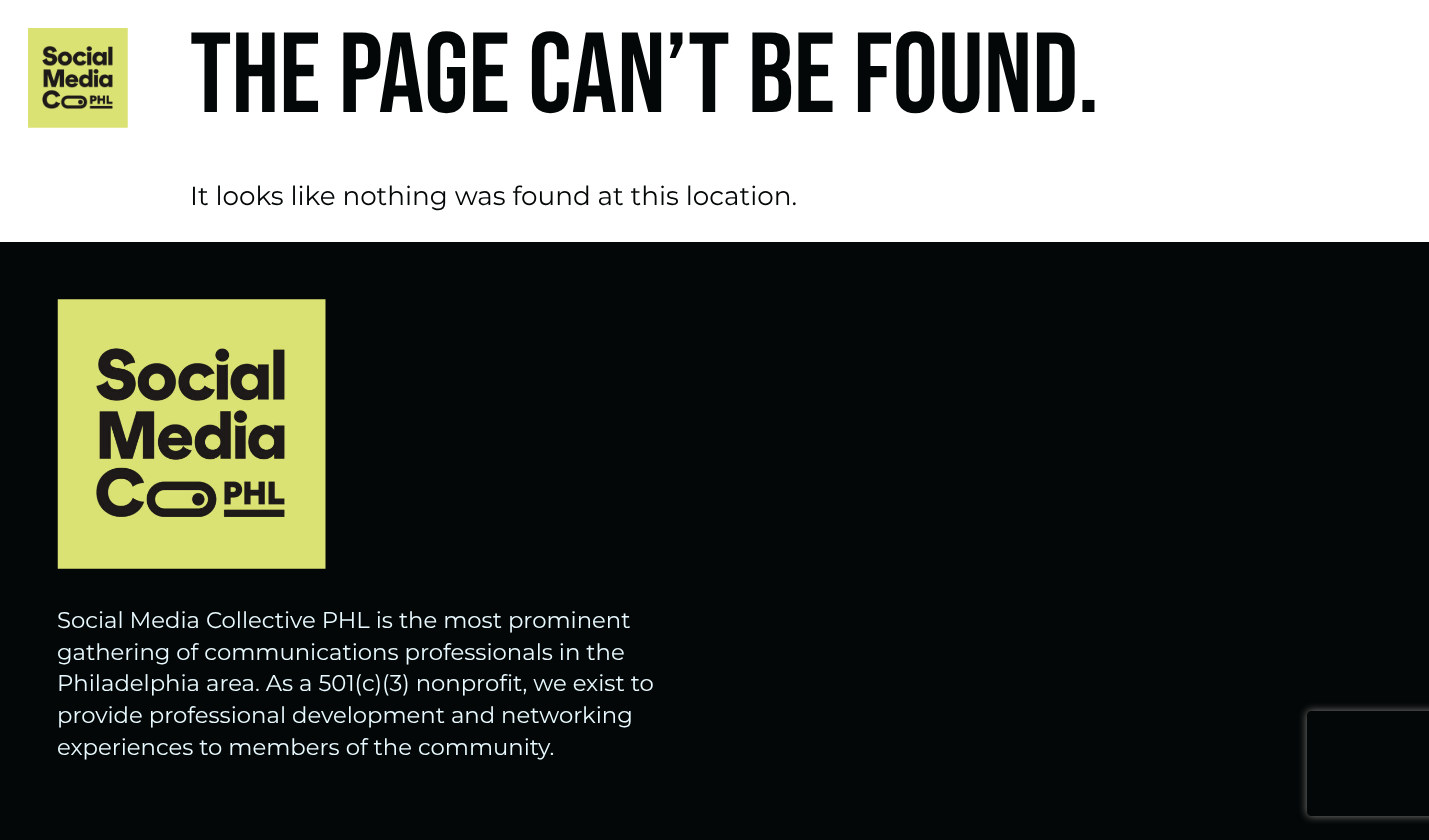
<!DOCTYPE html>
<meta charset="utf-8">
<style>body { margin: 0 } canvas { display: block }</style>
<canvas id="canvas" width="1429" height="840"></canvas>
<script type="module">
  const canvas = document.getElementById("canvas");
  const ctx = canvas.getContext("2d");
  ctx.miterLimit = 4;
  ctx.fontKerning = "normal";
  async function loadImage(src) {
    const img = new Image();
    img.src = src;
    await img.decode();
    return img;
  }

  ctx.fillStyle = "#ffffff";
  ctx.fillRect(0, 0, 1429, 840);
  ctx.drawImage(await loadImage("img1.png"), 28, 28, 100, 100);
  ctx.font = "113.75px Bebas Neue";
  ctx.fillStyle = "#040707";
  ctx.fillText("THE PAGE CAN’T BE FOUND.", 190, 112);
  ctx.font = "26.25px Montserrat";
  ctx.fillText("It looks like nothing was found at this location.", 190, 205);
  ctx.fillRect(0, 242, 1429, 598);
  ctx.drawImage(await loadImage("img2.png"), 57, 299, 269, 270);
  ctx.font = "22.75px Montserrat";
  ctx.fillStyle = "#e8faff";
  ctx.fillText("Social Media Collective PHL is the most prominent", 57, 628);
  ctx.fillText("gathering of communications professionals in the", 57, 660);
  ctx.fillText("Philadelphia area. As a 501(c)(3) nonprofit, we exist to", 57, 691);
  ctx.fillText("provide professional development and networking", 57, 723);
  ctx.fillText("experiences to members of the community.", 57, 755);
  ctx.save();
  ctx.beginPath();
  ctx.moveTo(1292, 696);
  ctx.lineTo(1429, 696);
  ctx.lineTo(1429, 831);
  ctx.lineTo(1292, 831);
  ctx.closePath();
  ctx.moveTo(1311, 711);
  ctx.lineTo(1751, 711);
  ctx.bezierCurveTo(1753, 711, 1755, 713, 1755, 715);
  ctx.lineTo(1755, 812);
  ctx.bezierCurveTo(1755, 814, 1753, 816, 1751, 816);
  ctx.lineTo(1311, 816);
  ctx.bezierCurveTo(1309, 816, 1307, 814, 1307, 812);
  ctx.lineTo(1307, 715);
  ctx.bezierCurveTo(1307, 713, 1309, 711, 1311, 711);
  ctx.closePath();
  ctx.clip("evenodd");
  ctx.fillStyle = "#808080";
  ctx.filter = "blur(4.5px)";
  ctx.beginPath();
  ctx.roundRect(1307, 711, 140, 105, 4);
  ctx.fill();
  ctx.filter = "none";
  ctx.restore();
</script>
